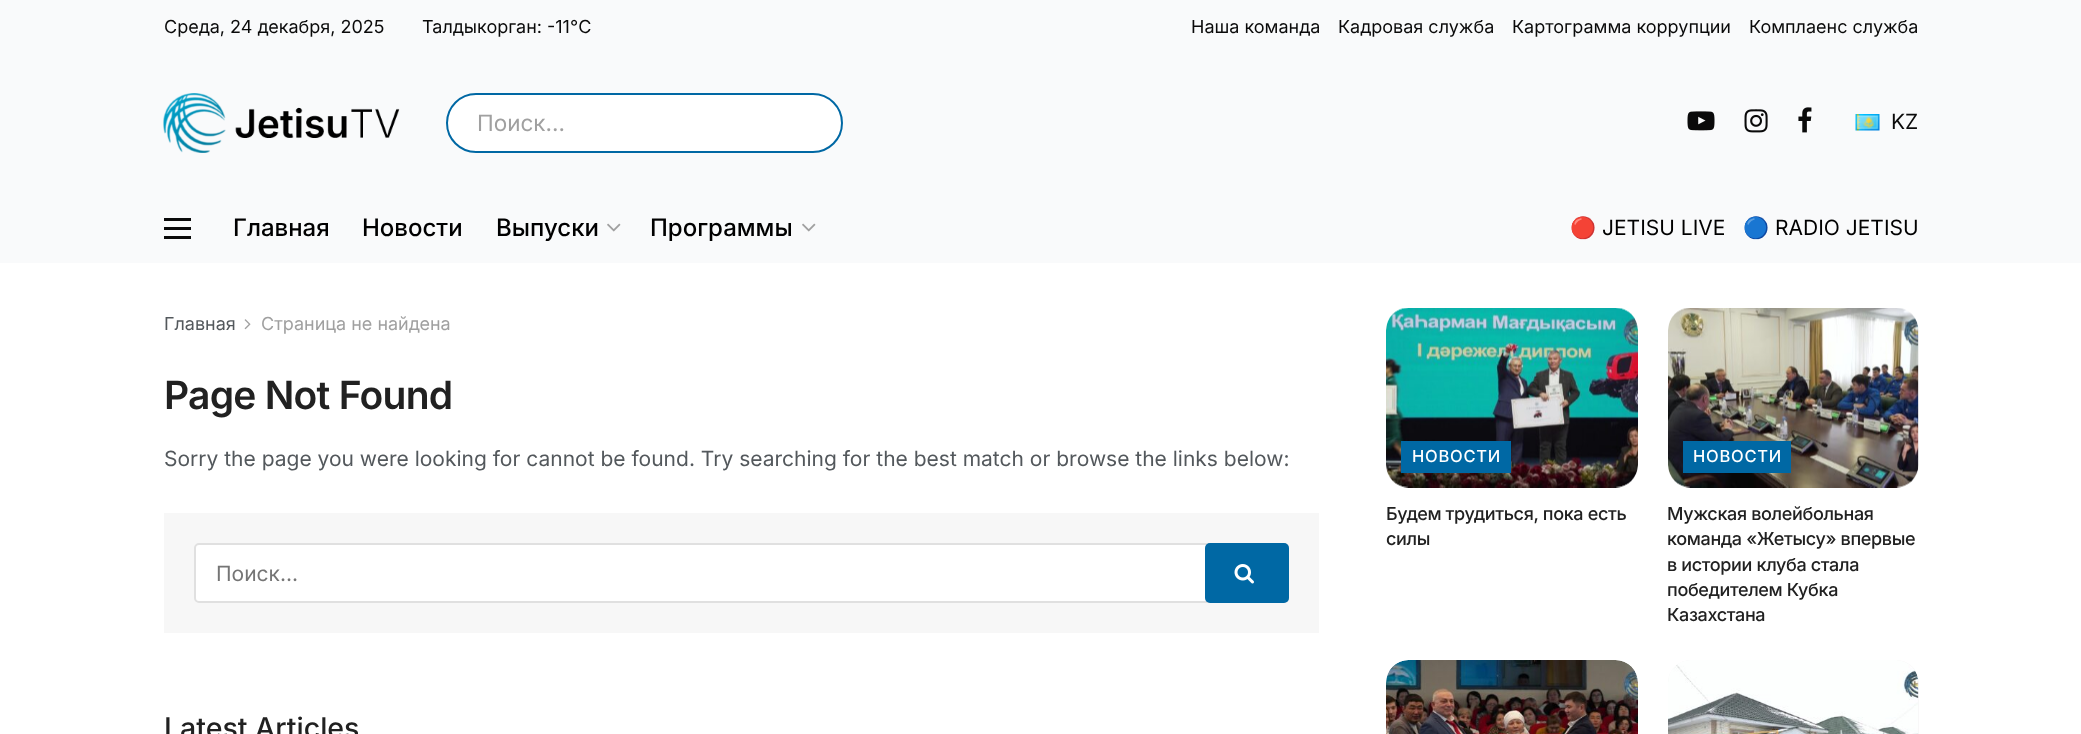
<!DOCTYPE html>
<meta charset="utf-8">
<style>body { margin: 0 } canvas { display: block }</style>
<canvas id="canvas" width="2081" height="734"></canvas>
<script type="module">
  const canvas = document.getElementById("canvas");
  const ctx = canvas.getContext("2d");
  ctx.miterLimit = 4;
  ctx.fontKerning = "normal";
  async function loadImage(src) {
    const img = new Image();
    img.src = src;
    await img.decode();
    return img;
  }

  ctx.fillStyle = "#ffffff";
  ctx.fillRect(0, 0, 2081, 734);
  ctx.fillStyle = "#f9fafb";
  ctx.fillRect(0, 0, 2081, 263);
  ctx.font = "18px Inter";
  ctx.fillStyle = "#0a0a0a";
  ctx.fillText("Среда, 24 декабря, 2025", 164, 33);
  ctx.fillText("Талдыкорган: -11°C", 422, 33);
  ctx.fillText("Наша команда", 1191, 33);
  ctx.fillText("Кадровая служба", 1338, 33);
  ctx.fillText("Картограмма коррупции", 1512, 33);
  ctx.fillText("Комплаенс служба", 1749, 33);
  ctx.drawImage(await loadImage("img1.png"), 163, 93, 237, 60);
  ctx.fillStyle = "#ffffff";
  ctx.beginPath();
  ctx.roundRect(447, 94, 395, 58, 29);
  ctx.fill();
  ctx.strokeStyle = "#0068a4";
  ctx.lineWidth = 2;
  ctx.stroke();
  ctx.font = "22.5px Inter";
  ctx.fillStyle = "#a0a0a0";
  ctx.fillText("Поиск...", 477, 131);
  ctx.drawImage(await loadImage("img2.png"), 1687, 111, 28, 20);
  ctx.drawImage(await loadImage("img3.png"), 1744, 109, 24, 24);
  ctx.drawImage(await loadImage("img4.png"), 1798, 107, 14, 26);
  ctx.drawImage(await loadImage("img5.png"), 1855, 114, 25, 17);
  ctx.font = "21px Inter";
  ctx.fillStyle = "#0a0a0a";
  ctx.fillText("KZ", 1891, 129);
  ctx.fillRect(164, 218, 27, 3);
  ctx.fillRect(164, 227, 27, 3);
  ctx.fillRect(164, 236, 27, 3);
  ctx.font = "500 24px Inter";
  ctx.fillStyle = "#000000";
  ctx.fillText("Главная", 233, 236);
  ctx.fillText("Новости", 362, 236);
  ctx.fillText("Выпуски", 496, 236);
  ctx.drawImage(await loadImage("img6.png"), 607, 223, 14, 9);
  ctx.fillText("Программы", 650, 236);
  ctx.drawImage(await loadImage("img6.png"), 802, 223, 14, 9);
  ctx.font = "21px Noto Color Emoji";
  ctx.fillText("🔴", 1570, 235);
  ctx.font = "21px Inter";
  ctx.fillText("JETISU LIVE", 1602, 235);
  ctx.font = "21px Noto Color Emoji";
  ctx.fillText("🔵", 1743, 235);
  ctx.font = "21px Inter";
  ctx.fillText("RADIO JETISU", 1775, 235);
  ctx.font = "18px Inter";
  ctx.fillStyle = "#53585c";
  ctx.fillText("Главная", 164, 330);
  ctx.drawImage(await loadImage("img7.png"), 244, 319, 7, 11);
  ctx.fillStyle = "#a0a0a0";
  ctx.fillText("Страница не найдена", 261, 330);
  ctx.letterSpacing = "-0.75px";
  ctx.font = "600 39px Inter";
  ctx.fillStyle = "#212121";
  ctx.fillText("Page Not Found", 164, 409);
  ctx.letterSpacing = "0px";
  ctx.font = "21px Inter";
  ctx.fillStyle = "#53585c";
  ctx.fillText("Sorry the page you were looking for cannot be found. Try searching for the best match or browse the links below:", 164, 466);
  ctx.fillStyle = "#f7f7f7";
  ctx.fillRect(164, 513, 1155, 120);
  ctx.fillStyle = "#ffffff";
  ctx.beginPath();
  ctx.roundRect(195, 544, 1093, 58, 4);
  ctx.fill();
  ctx.strokeStyle = "#e0e0e0";
  ctx.stroke();
  ctx.fillStyle = "#757575";
  ctx.fillText("Поиск...", 216, 581);
  ctx.fillStyle = "#0068a4";
  ctx.beginPath();
  ctx.roundRect(1205, 543, 84, 60, 5);
  ctx.fill();
  ctx.drawImage(await loadImage("img8.png"), 1234, 564, 20, 20);
  ctx.font = "500 28.5px Inter";
  ctx.fillStyle = "#212121";
  ctx.fillText("Latest Articles", 164, 738);
  ctx.fillStyle = "#f7f7f7";
  ctx.beginPath();
  ctx.roundRect(1386, 308, 252, 180, 23);
  ctx.fill();
  ctx.drawImage(await loadImage("img9.png"), 1391, 312, 242, 4);
  ctx.drawImage(await loadImage("img10.png"), 1386, 308, 252, 180);
  ctx.fillStyle = "#0068a4";
  ctx.fillRect(1401, 441, 110, 32);
  ctx.letterSpacing = "0.75px";
  ctx.font = "500 16.5px Inter";
  ctx.fillStyle = "#ffffff";
  ctx.fillText("НОВОСТИ", 1412, 462);
  ctx.letterSpacing = "-0.35px";
  ctx.font = "500 18px Inter";
  ctx.fillStyle = "#212121";
  ctx.fillText("Будем трудиться, пока есть", 1386, 520);
  ctx.fillText("силы", 1386, 545);
  ctx.fillStyle = "#f7f7f7";
  ctx.beginPath();
  ctx.roundRect(1668, 308, 251, 180, 23);
  ctx.fill();
  ctx.drawImage(await loadImage("img11.png"), 1674, 313, 2, 2);
  ctx.drawImage(await loadImage("img12.png"), 1668, 308, 251, 180);
  ctx.fillStyle = "#0068a4";
  ctx.fillRect(1683, 441, 108, 32);
  ctx.letterSpacing = "0.75px";
  ctx.font = "500 16.5px Inter";
  ctx.fillStyle = "#ffffff";
  ctx.fillText("НОВОСТИ", 1693, 462);
  ctx.letterSpacing = "-0.35px";
  ctx.font = "500 18px Inter";
  ctx.fillStyle = "#212121";
  ctx.fillText("Мужская волейбольная", 1667, 520);
  ctx.fillText("команда «Жетысу» впервые", 1667, 545);
  ctx.fillText("в истории клуба стала", 1667, 571);
  ctx.fillText("победителем Кубка", 1667, 596);
  ctx.fillText("Казахстана", 1667, 621);
  ctx.fillStyle = "#f7f7f7";
  ctx.beginPath();
  ctx.roundRect(1386, 660, 252, 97, 23);
  ctx.fill();
  ctx.drawImage(await loadImage("img13.png"), 1386, 660, 252, 74);
  ctx.beginPath();
  ctx.roundRect(1668, 660, 251, 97, 23);
  ctx.fill();
  ctx.drawImage(await loadImage("img14.png"), 1668, 660, 251, 74);
</script>
